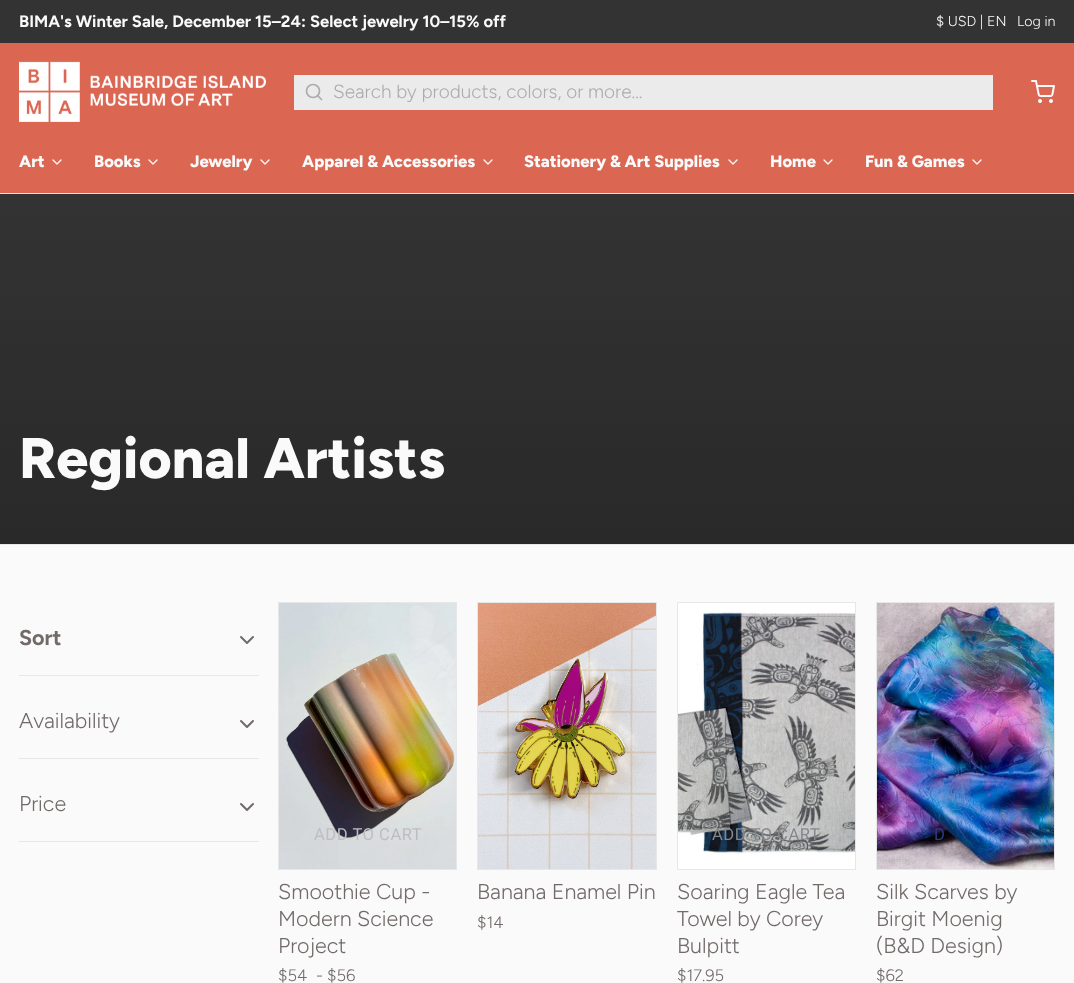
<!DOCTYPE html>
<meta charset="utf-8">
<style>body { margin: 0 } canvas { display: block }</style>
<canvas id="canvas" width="1074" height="983"></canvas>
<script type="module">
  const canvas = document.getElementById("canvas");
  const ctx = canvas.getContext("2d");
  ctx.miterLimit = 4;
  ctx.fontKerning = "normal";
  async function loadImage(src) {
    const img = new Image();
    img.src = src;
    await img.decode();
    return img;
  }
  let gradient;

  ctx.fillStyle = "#fafafa";
  ctx.fillRect(0, 0, 1074, 983);
  ctx.fillStyle = "#333333";
  ctx.fillRect(0, 0, 1074, 43);
  ctx.font = "bold 16.6px Figtree";
  ctx.fillStyle = "#fafafa";
  ctx.fillText("BIMA's Winter Sale, December 15–24: Select jewelry 10–15% off", 19, 27);
  ctx.font = "300 14.25px Figtree";
  ctx.fillText("$ USD | EN", 936, 26);
  ctx.fillText("Log in", 1017, 26);
  ctx.fillStyle = "#db6652";
  ctx.fillRect(0, 43, 1074, 150);
  ctx.fillStyle = "#e7e7e7";
  ctx.fillRect(0, 193, 1074, 1);
  ctx.drawImage(await loadImage("img1.png"), 19, 61, 247, 61);
  ctx.fillStyle = "#ebebeb";
  ctx.fillRect(294, 75, 699, 35);
  ctx.beginPath();
  ctx.arc(313, 91, 6.5, 0, Math.PI * 2);
  ctx.strokeStyle = "#aeabaa";
  ctx.lineWidth = 1.7;
  ctx.stroke();
  ctx.beginPath();
  ctx.moveTo(321.5, 99.5);
  ctx.lineTo(318, 96);
  ctx.lineCap = "round";
  ctx.lineJoin = "round";
  ctx.stroke();
  ctx.font = "300 19px Figtree";
  ctx.fillStyle = "#aeabaa";
  ctx.fillText("Search by products, colors, or more...", 333, 98);
  ctx.drawImage(await loadImage("img2.png"), 1031, 80, 24, 23);
  ctx.font = "800 16.6px Figtree";
  ctx.fillStyle = "#fafafa";
  ctx.fillText("Art", 19, 167);
  ctx.beginPath();
  ctx.moveTo(53, 160);
  ctx.lineTo(57, 164);
  ctx.lineTo(61, 160);
  ctx.strokeStyle = "#fafafa";
  ctx.lineWidth = 1.3;
  ctx.stroke();
  ctx.fillText("Books", 94, 167);
  ctx.beginPath();
  ctx.moveTo(149, 160);
  ctx.lineTo(153, 164);
  ctx.lineTo(157, 160);
  ctx.stroke();
  ctx.fillText("Jewelry", 190, 167);
  ctx.beginPath();
  ctx.moveTo(261, 160);
  ctx.lineTo(265, 164);
  ctx.lineTo(269, 160);
  ctx.stroke();
  ctx.fillText("Apparel & Accessories", 302, 167);
  ctx.beginPath();
  ctx.moveTo(484, 160);
  ctx.lineTo(488, 164);
  ctx.lineTo(492, 160);
  ctx.stroke();
  ctx.fillText("Stationery & Art Supplies", 524, 167);
  ctx.beginPath();
  ctx.moveTo(729, 160);
  ctx.lineTo(733, 164);
  ctx.lineTo(737, 160);
  ctx.stroke();
  ctx.fillText("Home", 770, 167);
  ctx.beginPath();
  ctx.moveTo(824, 160);
  ctx.lineTo(828, 164);
  ctx.lineTo(832, 160);
  ctx.stroke();
  ctx.fillText("Fun & Games", 865, 167);
  ctx.beginPath();
  ctx.moveTo(973, 160);
  ctx.lineTo(977, 164);
  ctx.lineTo(981, 160);
  ctx.stroke();
  ctx.fillStyle = "#e7e7e7";
  ctx.fillRect(0, 544, 1074, 1);
  gradient = ctx.createLinearGradient(537, 194, 537, 544);
  gradient.addColorStop(0, "#333333");
  gradient.addColorStop(1, "#292929");
  ctx.fillStyle = gradient;
  ctx.fillRect(0, 194, 1074, 350);
  ctx.font = "800 57px Figtree";
  ctx.fillStyle = "#fafafa";
  ctx.fillText("Regional Artists", 19, 478);
  ctx.fillStyle = "#e7e7e7";
  ctx.fillRect(19, 675, 240, 1);
  ctx.font = "bold 21.5px Figtree";
  ctx.fillStyle = "#716a69";
  ctx.fillText("Sort", 19, 645);
  ctx.beginPath();
  ctx.moveTo(241, 637);
  ctx.lineTo(247, 643);
  ctx.lineTo(253, 637);
  ctx.strokeStyle = "#716a69";
  ctx.lineWidth = 2;
  ctx.stroke();
  ctx.fillStyle = "#e7e7e7";
  ctx.fillRect(19, 758, 240, 1);
  ctx.font = "300 21.5px Figtree";
  ctx.fillStyle = "#716a69";
  ctx.fillText("Availability", 19, 728);
  ctx.beginPath();
  ctx.moveTo(241, 721);
  ctx.lineTo(247, 727);
  ctx.lineTo(253, 721);
  ctx.stroke();
  ctx.fillStyle = "#e7e7e7";
  ctx.fillRect(19, 841, 240, 1);
  ctx.fillStyle = "#716a69";
  ctx.fillText("Price", 19, 811);
  ctx.beginPath();
  ctx.moveTo(241, 804);
  ctx.lineTo(247, 810);
  ctx.lineTo(253, 804);
  ctx.stroke();
  ctx.strokeStyle = "#e7e7e7";
  ctx.lineWidth = 1;
  ctx.lineJoin = "miter";
  ctx.strokeRect(278.5, 602.5, 178, 267);
  ctx.drawImage(await loadImage("img3.png"), 279, 603, 177, 266);
  ctx.letterSpacing = "0.5px";
  ctx.font = "16.6px Roboto";
  ctx.fillStyle = "#bcbec2";
  ctx.fillText("ADD TO CART", 314, 840);
  ctx.letterSpacing = "0px";
  ctx.font = "300 21.5px Figtree";
  ctx.fillStyle = "#716a69";
  ctx.fillText("Smoothie Cup -", 278, 899);
  ctx.fillText("Modern Science", 278, 926);
  ctx.fillText("Project", 278, 953);
  ctx.font = "300 16.6px Figtree";
  ctx.fillText("$54", 278, 981);
  ctx.fillText("- $56", 316, 981);
  ctx.strokeRect(477.5, 602.5, 179, 267);
  ctx.drawImage(await loadImage("img4.png"), 478, 603, 178, 266);
  ctx.font = "300 21.5px Figtree";
  ctx.fillText("Banana Enamel Pin", 477, 899);
  ctx.font = "300 16.6px Figtree";
  ctx.fillText("$14", 477, 928);
  ctx.strokeRect(677.5, 602.5, 178, 267);
  ctx.drawImage(await loadImage("img5.png"), 678, 603, 177, 266);
  ctx.letterSpacing = "0.5px";
  ctx.font = "16.6px Roboto";
  ctx.fillStyle = "#84888c";
  ctx.fillText("ADD TO CART", 712, 840);
  ctx.letterSpacing = "0px";
  ctx.font = "300 21.5px Figtree";
  ctx.fillStyle = "#716a69";
  ctx.fillText("Soaring Eagle Tea", 677, 899);
  ctx.fillText("Towel by Corey", 677, 926);
  ctx.fillText("Bulpitt", 677, 953);
  ctx.font = "300 16.6px Figtree";
  ctx.fillText("$17.95", 677, 981);
  ctx.strokeRect(876.5, 602.5, 178, 267);
  ctx.drawImage(await loadImage("img6.png"), 877, 603, 177, 266);
  ctx.letterSpacing = "0.5px";
  ctx.font = "16.6px Roboto";
  ctx.fillStyle = "#253f7f";
  ctx.fillText("D", 934, 840);
  ctx.letterSpacing = "0px";
  ctx.font = "300 21.5px Figtree";
  ctx.fillStyle = "#716a69";
  ctx.fillText("Silk Scarves by", 876, 899);
  ctx.fillText("Birgit Moenig", 876, 926);
  ctx.fillText("(B&D Design)", 876, 953);
  ctx.font = "300 16.6px Figtree";
  ctx.fillText("$62", 876, 981);
</script>
